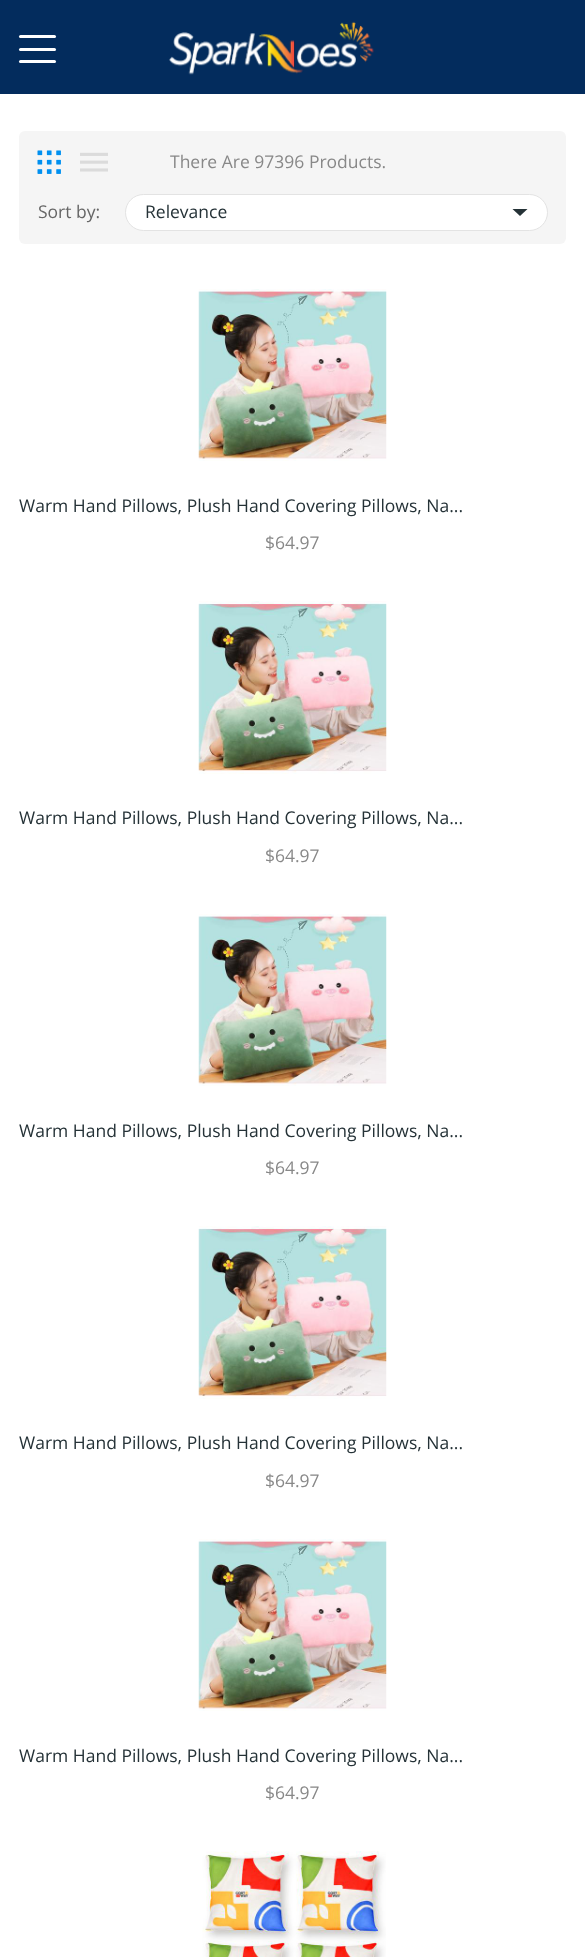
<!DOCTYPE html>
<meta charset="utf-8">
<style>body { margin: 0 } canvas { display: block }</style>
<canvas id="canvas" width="585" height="1957"></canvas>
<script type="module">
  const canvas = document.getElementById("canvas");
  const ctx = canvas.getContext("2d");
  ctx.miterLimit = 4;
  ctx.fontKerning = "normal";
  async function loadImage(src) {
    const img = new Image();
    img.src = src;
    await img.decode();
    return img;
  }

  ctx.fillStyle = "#ffffff";
  ctx.fillRect(0, 0, 585, 1957);
  ctx.fillStyle = "#032c5d";
  ctx.fillRect(0, 0, 585, 94);
  ctx.drawImage(await loadImage("img1.png"), 169, 21, 205, 54);
  ctx.fillStyle = "#ffffff";
  ctx.beginPath();
  ctx.roundRect(19, 35, 37, 3, 1.5);
  ctx.fill();
  ctx.beginPath();
  ctx.roundRect(19, 48, 37, 3, 1.5);
  ctx.fill();
  ctx.beginPath();
  ctx.roundRect(19, 60, 37, 3, 1.5);
  ctx.fill();
  ctx.fillStyle = "#f5f5f5";
  ctx.beginPath();
  ctx.roundRect(19, 131, 547, 113, 6);
  ctx.fill();
  ctx.drawImage(await loadImage("img2.png"), 37, 150, 24, 24);
  ctx.drawImage(await loadImage("img3.png"), 80, 152, 28, 20);
  ctx.font = "17.5px Open Sans";
  ctx.fillStyle = "#888888";
  ctx.fillText("There Are 97396 Products.", 170, 168);
  ctx.fillStyle = "#666666";
  ctx.fillText("Sort by:", 38, 218);
  ctx.fillStyle = "#ffffff";
  ctx.beginPath();
  ctx.roundRect(125.5, 194.5, 422, 36, 18);
  ctx.fill();
  ctx.strokeStyle = "#e3e3e3";
  ctx.stroke();
  ctx.fillStyle = "#253237";
  ctx.fillText("Relevance", 145, 218);
  ctx.beginPath();
  ctx.moveTo(512.5, 209);
  ctx.lineTo(527.5, 209);
  ctx.lineTo(520, 216);
  ctx.closePath();
  ctx.fill();
  ctx.drawImage(await loadImage("img4.png"), 198, 289, 189, 172);
  ctx.fillText("Warm Hand Pillows, Plush Hand Covering Pillows, Na...", 19, 512);
  ctx.fillStyle = "#888888";
  ctx.fillText("$64.97", 265, 549);
  ctx.drawImage(await loadImage("img5.png"), 198, 601, 189, 173);
  ctx.fillStyle = "#253237";
  ctx.fillText("Warm Hand Pillows, Plush Hand Covering Pillows, Na...", 19, 824);
  ctx.fillStyle = "#888888";
  ctx.fillText("$64.97", 265, 862);
  ctx.drawImage(await loadImage("img4.png"), 198, 914, 189, 172);
  ctx.fillStyle = "#253237";
  ctx.fillText("Warm Hand Pillows, Plush Hand Covering Pillows, Na...", 19, 1137);
  ctx.fillStyle = "#888888";
  ctx.fillText("$64.97", 265, 1174);
  ctx.drawImage(await loadImage("img5.png"), 198, 1226, 189, 173);
  ctx.fillStyle = "#253237";
  ctx.fillText("Warm Hand Pillows, Plush Hand Covering Pillows, Na...", 19, 1449);
  ctx.fillStyle = "#888888";
  ctx.fillText("$64.97", 265, 1487);
  ctx.drawImage(await loadImage("img4.png"), 198, 1539, 189, 172);
  ctx.fillStyle = "#253237";
  ctx.fillText("Warm Hand Pillows, Plush Hand Covering Pillows, Na...", 19, 1762);
  ctx.fillStyle = "#888888";
  ctx.fillText("$64.97", 265, 1799);
  ctx.drawImage(await loadImage("img6.png"), 202, 1851, 184, 106);
</script>
